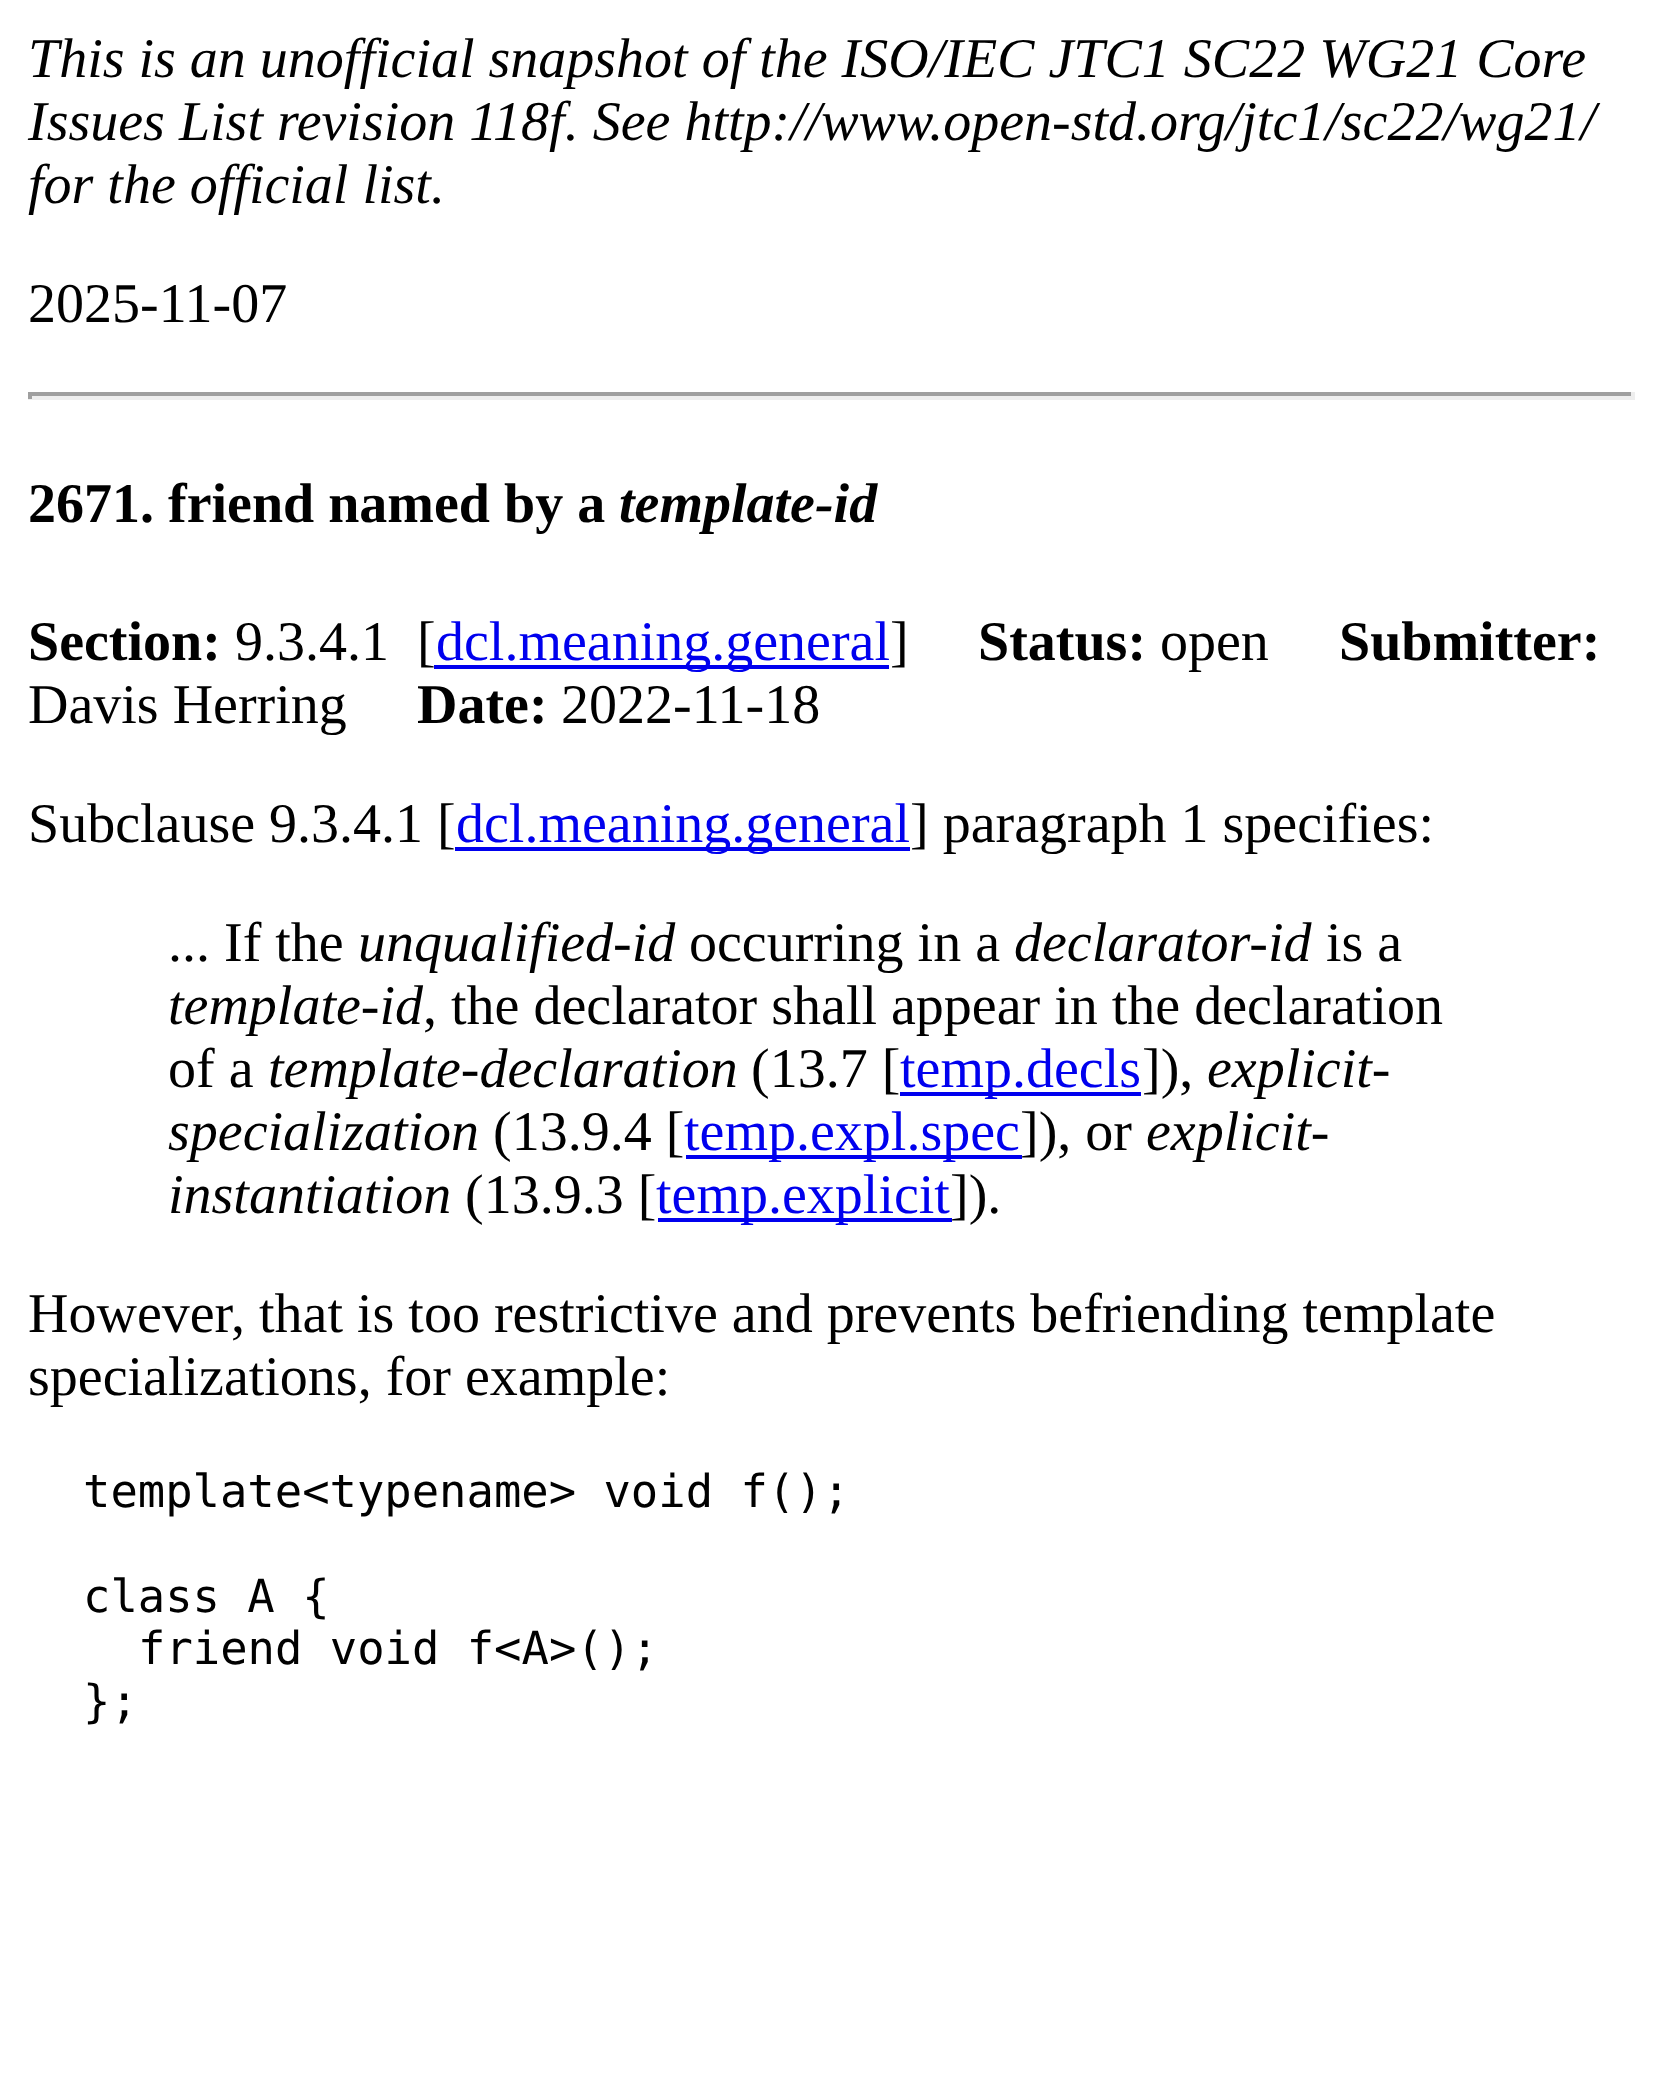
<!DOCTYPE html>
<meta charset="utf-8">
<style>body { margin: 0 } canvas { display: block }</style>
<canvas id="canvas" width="1662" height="2076"></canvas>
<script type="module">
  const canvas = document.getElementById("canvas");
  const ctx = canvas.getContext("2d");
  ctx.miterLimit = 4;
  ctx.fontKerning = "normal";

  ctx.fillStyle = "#ffffff";
  ctx.fillRect(0, 0, 1662, 2076);
  ctx.font = "italic 56px Liberation Serif";
  ctx.fillStyle = "#000000";
  ctx.fillText("This is an unofficial snapshot of the ISO/IEC JTC1 SC22 WG21 Core", 28, 77);
  ctx.fillText("Issues List revision 118f. See http://www.open-std.org/jtc1/sc22/wg21/", 28, 140);
  ctx.fillText("for the official list.", 28, 203);
  ctx.font = "56px Liberation Serif";
  ctx.fillText("2025-11-07", 28, 322);
  ctx.fillStyle = "#9f9f9f";
  ctx.fillRect(28, 392, 1607, 4);
  ctx.fillStyle = "#eeeeee";
  ctx.fillRect(1631, 392, 4, 7);
  ctx.fillRect(28, 396, 1607, 4);
  ctx.fillStyle = "#9f9f9f";
  ctx.fillRect(28, 392, 4, 7);
  ctx.font = "bold 56px Liberation Serif";
  ctx.fillStyle = "#000000";
  ctx.fillText("2671. friend named by a", 28, 522);
  ctx.font = "italic bold 56px Liberation Serif";
  ctx.fillText("template-id", 619, 522);
  ctx.font = "bold 56px Liberation Serif";
  ctx.fillText("Section:", 28, 660);
  ctx.font = "56px Liberation Serif";
  ctx.fillText("9.3.4.1  [", 235, 660);
  ctx.fillStyle = "#0000ee";
  ctx.fillRect(434, 665, 455, 4);
  ctx.fillText("dcl.meaning.general", 436, 660);
  ctx.fillStyle = "#000000";
  ctx.fillText("]", 890, 660);
  ctx.font = "bold 56px Liberation Serif";
  ctx.fillText("Status:", 978, 660);
  ctx.font = "56px Liberation Serif";
  ctx.fillText("open", 1160, 660);
  ctx.font = "bold 56px Liberation Serif";
  ctx.fillText("Submitter:", 1339, 660);
  ctx.font = "56px Liberation Serif";
  ctx.fillText("Davis Herring", 28, 723);
  ctx.font = "bold 56px Liberation Serif";
  ctx.fillText("Date:", 417, 723);
  ctx.font = "56px Liberation Serif";
  ctx.fillText("2022-11-18", 561, 723);
  ctx.fillText("Subclause 9.3.4.1 [", 28, 842);
  ctx.fillStyle = "#0000ee";
  ctx.fillRect(455, 847, 455, 4);
  ctx.fillText("dcl.meaning.general", 456, 842);
  ctx.fillStyle = "#000000";
  ctx.fillText("] paragraph 1 specifies:", 910, 842);
  ctx.fillText("... If the", 168, 961);
  ctx.font = "italic 56px Liberation Serif";
  ctx.fillText("unqualified-id", 358, 961);
  ctx.font = "56px Liberation Serif";
  ctx.fillText("occurring in a", 689, 961);
  ctx.font = "italic 56px Liberation Serif";
  ctx.fillText("declarator-id", 1014, 961);
  ctx.font = "56px Liberation Serif";
  ctx.fillText("is a", 1326, 961);
  ctx.font = "italic 56px Liberation Serif";
  ctx.fillText("template-id", 168, 1024);
  ctx.font = "56px Liberation Serif";
  ctx.fillText(", the declarator shall appear in the declaration", 423, 1024);
  ctx.fillText("of a", 168, 1087);
  ctx.font = "italic 56px Liberation Serif";
  ctx.fillText("template-declaration", 268, 1087);
  ctx.font = "56px Liberation Serif";
  ctx.fillText("(13.7 [", 751, 1087);
  ctx.fillStyle = "#0000ee";
  ctx.fillRect(900, 1092, 241, 4);
  ctx.fillText("temp.decls", 900, 1087);
  ctx.fillStyle = "#000000";
  ctx.fillText("]),", 1142, 1087);
  ctx.font = "italic 56px Liberation Serif";
  ctx.fillText("explicit-", 1207, 1087);
  ctx.fillText("specialization", 168, 1150);
  ctx.font = "56px Liberation Serif";
  ctx.fillText("(13.9.4 [", 493, 1150);
  ctx.fillStyle = "#0000ee";
  ctx.fillRect(686, 1155, 336, 4);
  ctx.fillText("temp.expl.spec", 684, 1150);
  ctx.fillStyle = "#000000";
  ctx.fillText("]), or", 1020, 1150);
  ctx.font = "italic 56px Liberation Serif";
  ctx.fillText("explicit-", 1146, 1150);
  ctx.fillText("instantiation", 168, 1213);
  ctx.font = "56px Liberation Serif";
  ctx.fillText("(13.9.3 [", 465, 1213);
  ctx.fillStyle = "#0000ee";
  ctx.fillRect(658, 1218, 294, 4);
  ctx.fillText("temp.explicit", 656, 1213);
  ctx.fillStyle = "#000000";
  ctx.fillText("]).", 950, 1213);
  ctx.fillText("However, that is too restrictive and prevents befriending template", 28, 1332);
  ctx.fillText("specializations, for example:", 28, 1395);
  ctx.font = "45.5px DejaVu Sans Mono";
  ctx.fillText("template<typename> void f();", 83, 1507);
  ctx.fillText("class A {", 83, 1612);
  ctx.fillText("friend void f<A>();", 138, 1664);
  ctx.fillText("};", 83, 1717);
</script>
